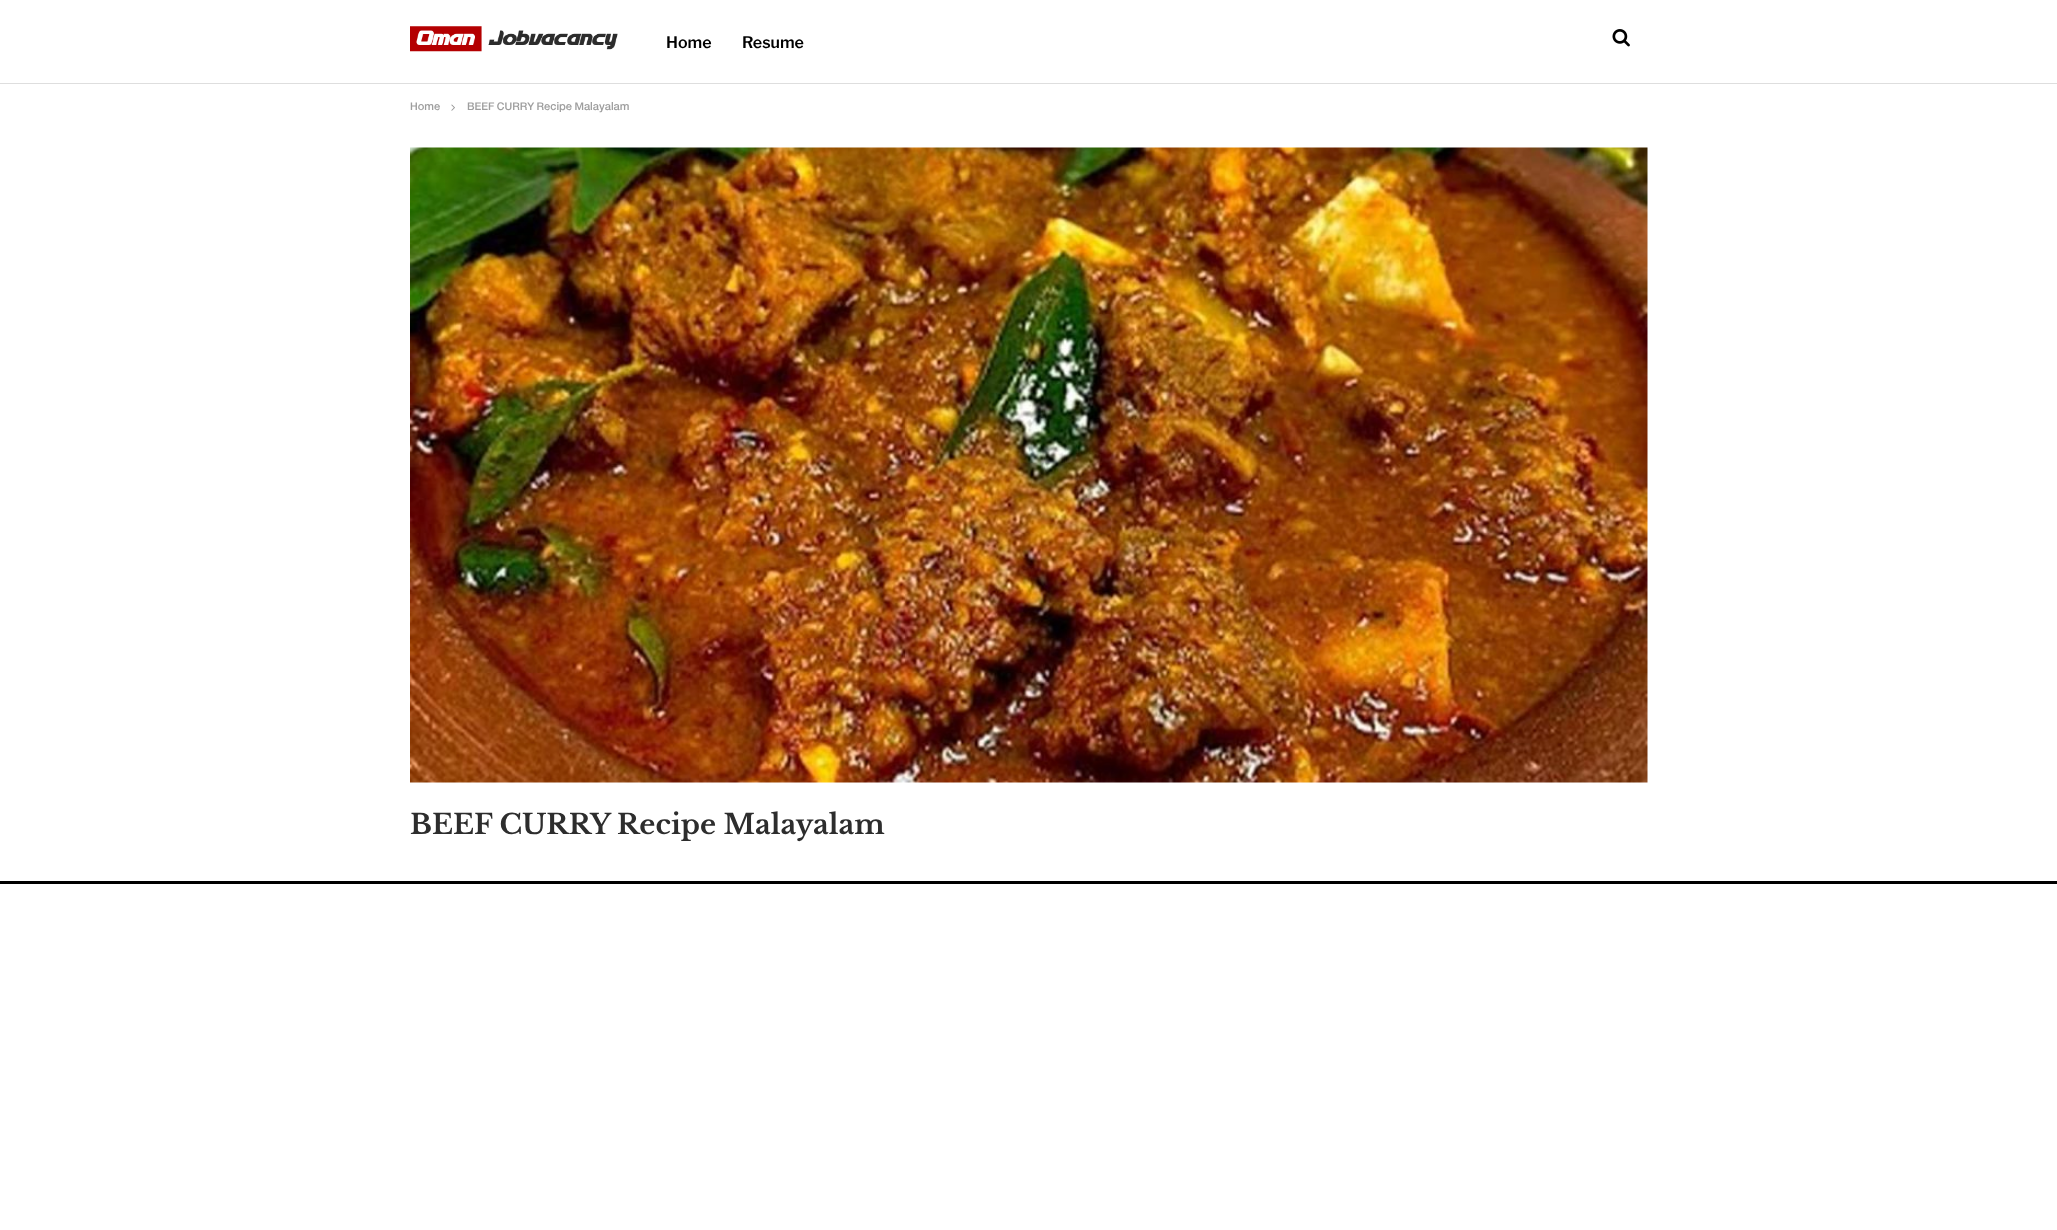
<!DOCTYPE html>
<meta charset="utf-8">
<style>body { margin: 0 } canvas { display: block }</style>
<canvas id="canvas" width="2057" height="1230"></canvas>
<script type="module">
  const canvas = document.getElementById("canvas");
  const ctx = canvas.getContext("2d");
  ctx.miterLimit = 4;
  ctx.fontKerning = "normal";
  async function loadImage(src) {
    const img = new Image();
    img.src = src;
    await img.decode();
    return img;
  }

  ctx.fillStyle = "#ffffff";
  ctx.fillRect(0, 0, 2057, 1230);
  ctx.fillStyle = "#dedede";
  ctx.fillRect(0, 83, 2057, 1);
  ctx.drawImage(await loadImage("img1.png"), 410, 26, 208, 26);
  ctx.font = "600 16px Libre Franklin";
  ctx.fillStyle = "#000000";
  ctx.fillText("Home", 666, 48);
  ctx.fillText("Resume", 742, 48);
  ctx.drawImage(await loadImage("img2.png"), 1612, 29, 18, 18);
  ctx.font = "bold 11.25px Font";
  ctx.fillStyle = "#9e9e9e";
  ctx.fillText("Home", 410, 110);
  ctx.drawImage(await loadImage("img3.png"), 451, 104, 4, 7);
  ctx.fillText("BEEF CURRY Recipe Malayalam", 467, 110);
  ctx.drawImage(await loadImage("img4.png"), 410, 147, 1238, 636);
  ctx.font = "bold 27.5px Libre Baskerville";
  ctx.fillStyle = "#2d2d2d";
  ctx.fillText("BEEF CURRY Recipe Malayalam", 410, 834);
  ctx.fillStyle = "#000000";
  ctx.fillRect(0, 881, 2057, 3);
</script>
